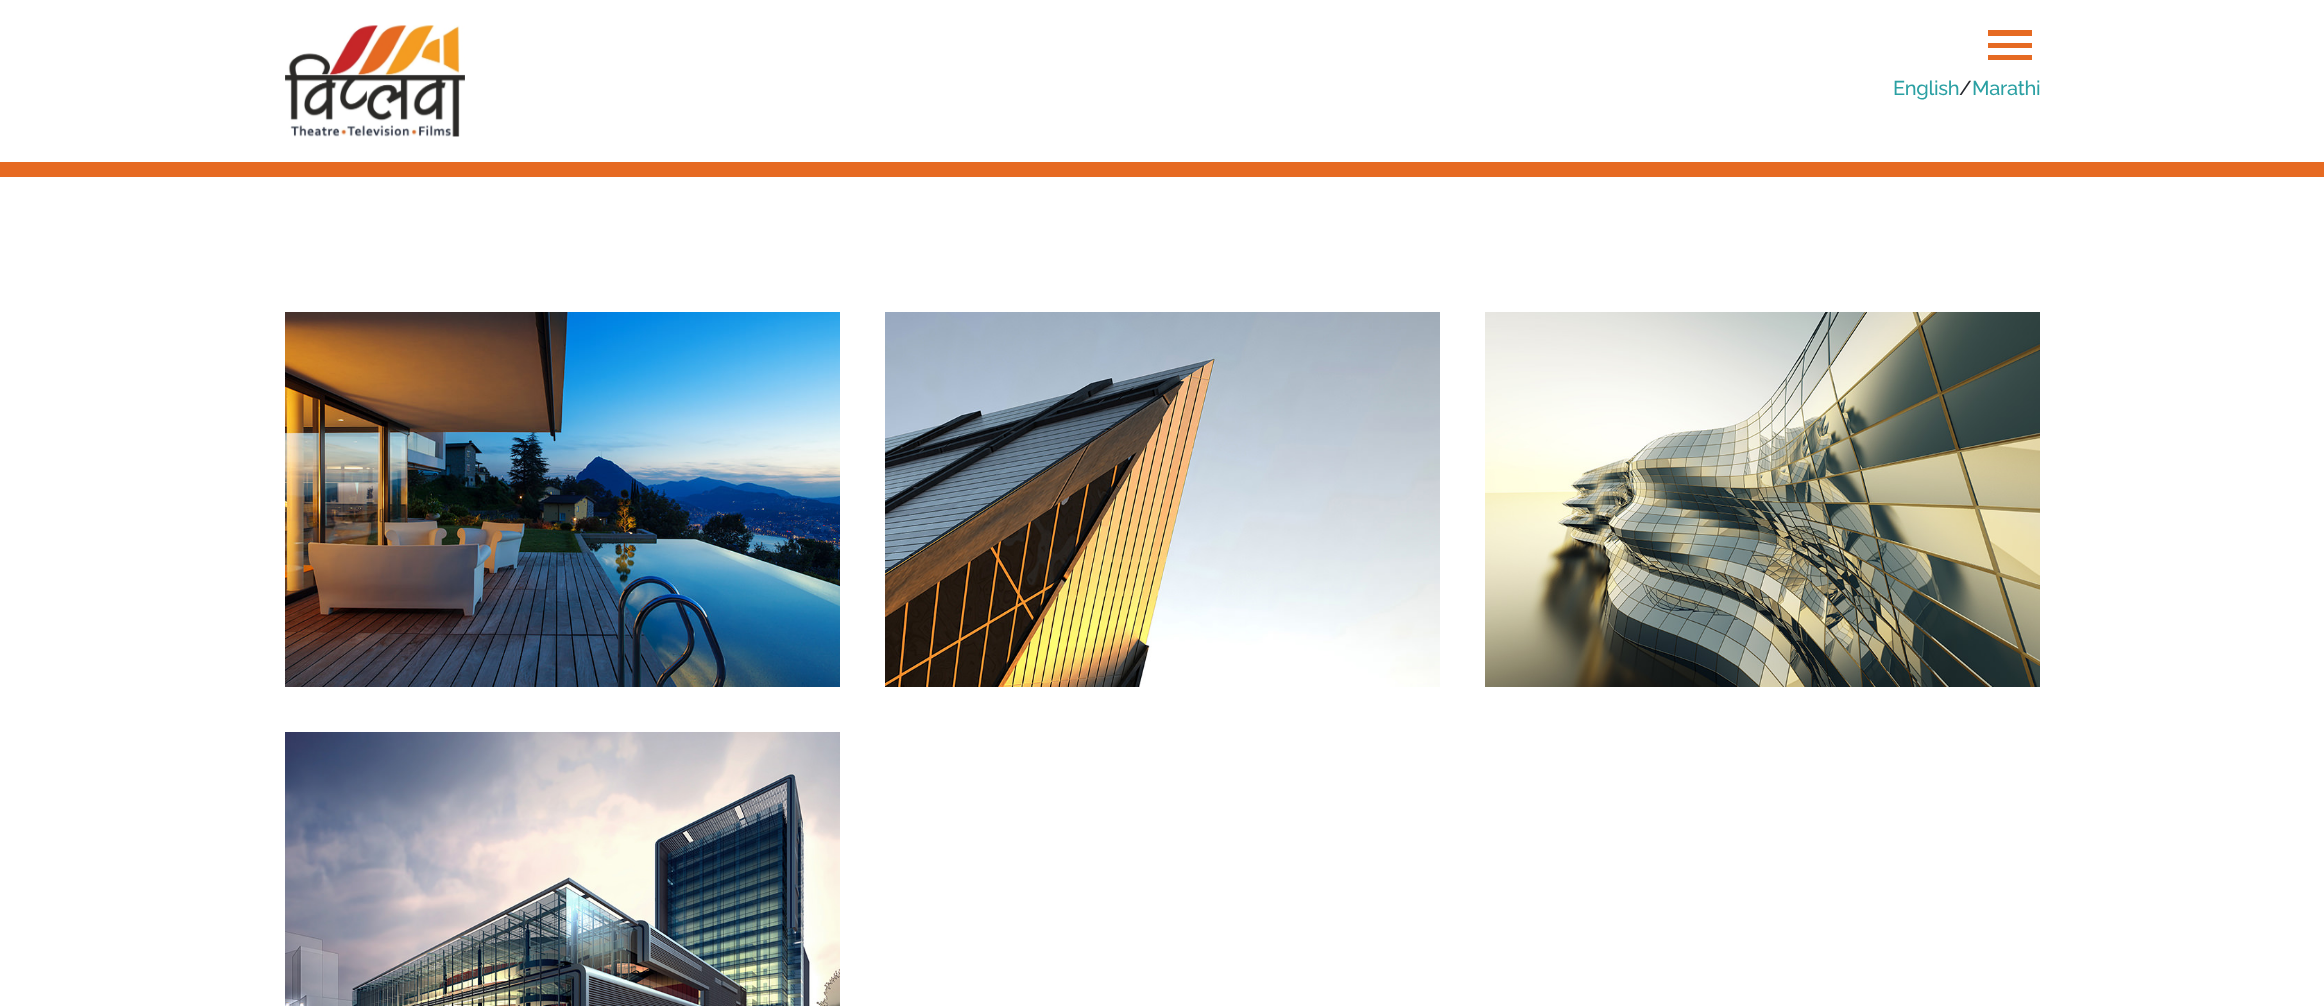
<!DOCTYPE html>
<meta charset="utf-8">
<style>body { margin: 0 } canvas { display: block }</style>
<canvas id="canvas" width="2324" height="1006"></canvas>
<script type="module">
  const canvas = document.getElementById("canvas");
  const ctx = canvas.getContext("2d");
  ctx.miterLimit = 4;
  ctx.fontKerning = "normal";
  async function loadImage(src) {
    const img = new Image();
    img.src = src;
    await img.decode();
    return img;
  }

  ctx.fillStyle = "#ffffff";
  ctx.fillRect(0, 0, 2324, 1006);
  ctx.fillStyle = "#e66a22";
  ctx.fillRect(0, 162, 2324, 15);
  ctx.drawImage(await loadImage("img1.png"), 285, 25, 180, 112);
  ctx.beginPath();
  ctx.moveTo(1988, 30);
  ctx.lineTo(2032, 30);
  ctx.lineTo(2032, 36);
  ctx.lineTo(1988, 36);
  ctx.closePath();
  ctx.moveTo(1988, 48);
  ctx.lineTo(1988, 43);
  ctx.lineTo(2032, 43);
  ctx.lineTo(2032, 48);
  ctx.closePath();
  ctx.moveTo(1988, 60);
  ctx.lineTo(1988, 55);
  ctx.lineTo(2032, 55);
  ctx.lineTo(2032, 60);
  ctx.closePath();
  ctx.fill();
  ctx.letterSpacing = "-0.25px";
  ctx.font = "100 20px Raleway";
  ctx.fillStyle = "#2ba0a3";
  ctx.fillText("English", 1893, 95);
  ctx.fillStyle = "#24272d";
  ctx.fillText("/", 1959, 95);
  ctx.fillStyle = "#2ba0a3";
  ctx.fillText("Marathi", 1972, 95);
  ctx.drawImage(await loadImage("img2.png"), 285, 312, 555, 375);
  ctx.drawImage(await loadImage("img3.png"), 885, 312, 555, 375);
  ctx.drawImage(await loadImage("img4.png"), 1485, 312, 555, 375);
  ctx.drawImage(await loadImage("img5.png"), 285, 732, 555, 274);
</script>
